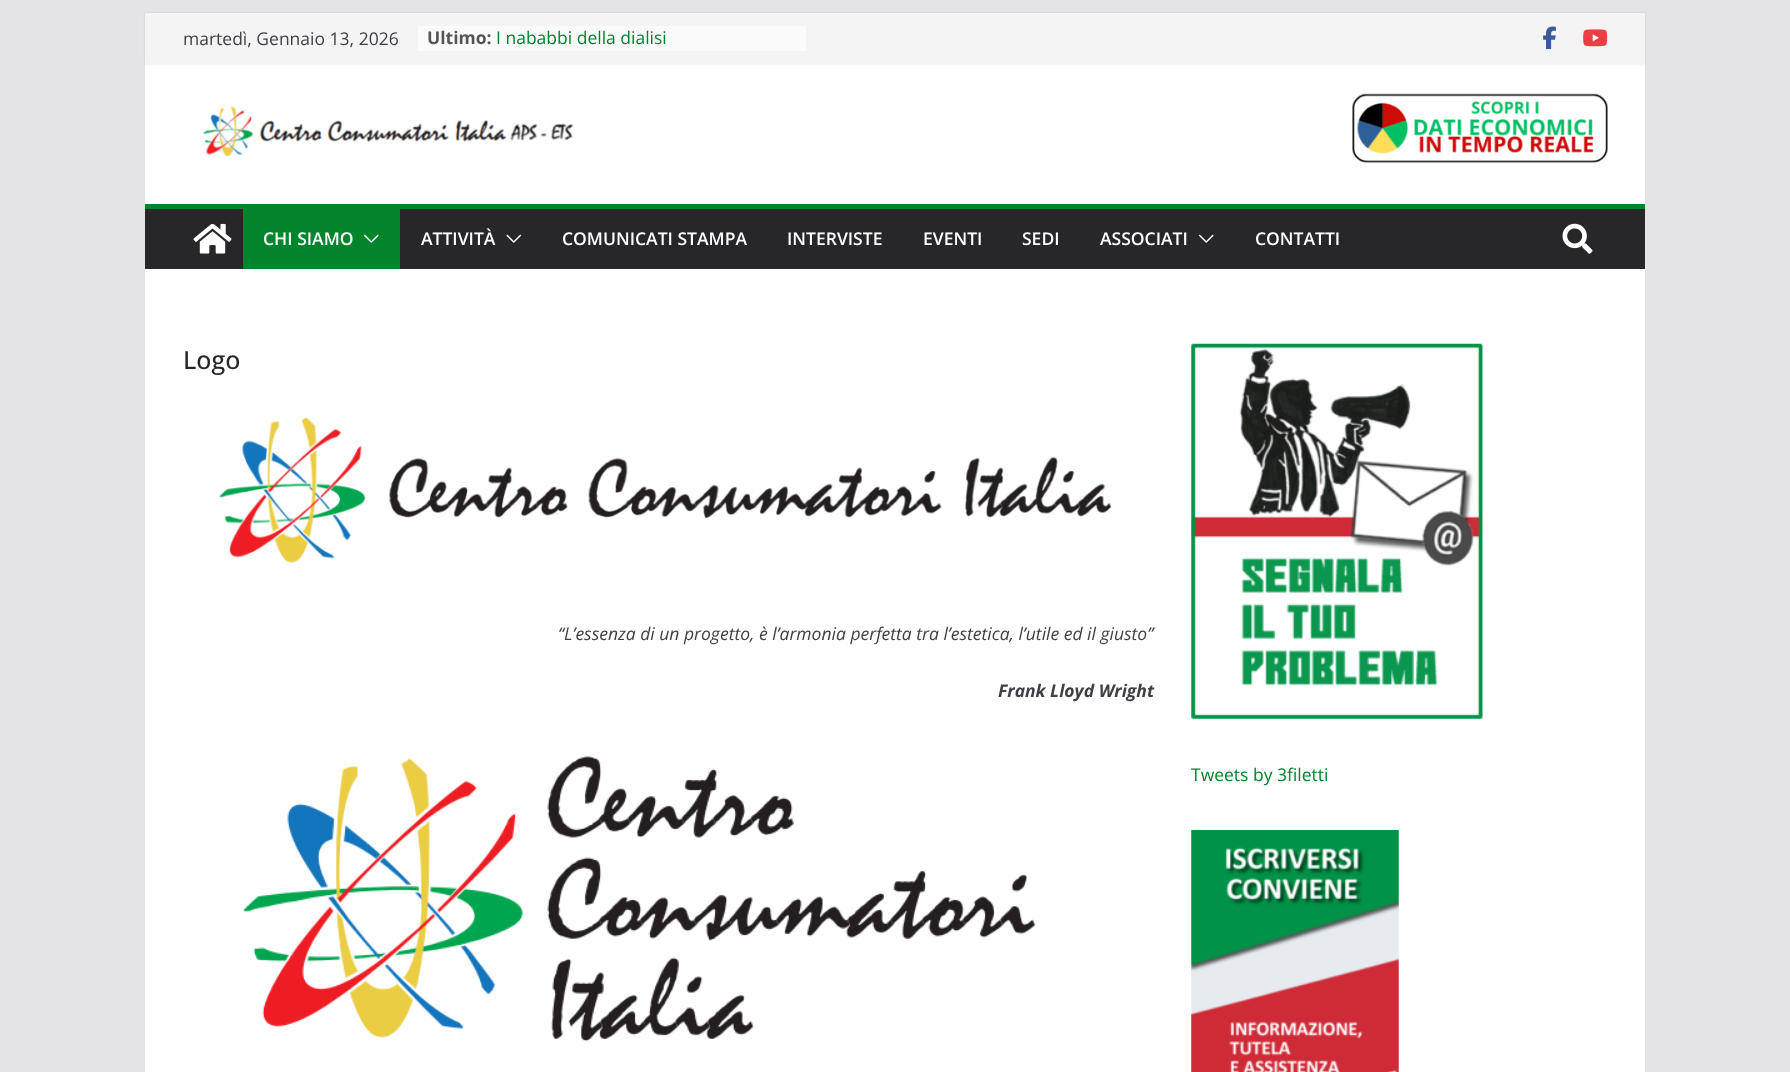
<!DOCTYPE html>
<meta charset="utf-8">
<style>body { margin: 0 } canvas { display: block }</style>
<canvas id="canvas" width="1790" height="1072"></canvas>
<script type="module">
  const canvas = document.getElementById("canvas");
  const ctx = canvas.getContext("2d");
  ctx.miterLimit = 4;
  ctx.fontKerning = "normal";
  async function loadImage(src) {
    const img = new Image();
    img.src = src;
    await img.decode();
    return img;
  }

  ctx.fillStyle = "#e4e4e7";
  ctx.fillRect(0, 0, 1790, 1072);
  ctx.fillStyle = "#ffffff";
  ctx.fillRect(145, 64, 1500, 140);
  ctx.fillStyle = "rgba(0, 0, 0, 0.1)";
  ctx.filter = "blur(1px)";
  ctx.beginPath();
  ctx.rect(145, 13, 1500, 51);
  ctx.fill();
  ctx.filter = "none";
  ctx.fillStyle = "#f4f4f5";
  ctx.fillRect(145, 13, 1500, 51);
  ctx.font = "17.5px Open Sans";
  ctx.fillStyle = "#3f3f46";
  ctx.fillText("martedì, Gennaio 13, 2026", 183, 45);
  ctx.fillStyle = "#fafafa";
  ctx.fillRect(418, 26, 388, 25);
  ctx.font = "bold 17.5px Open Sans";
  ctx.fillStyle = "#555555";
  ctx.fillText("Ultimo:", 427, 44);
  ctx.font = "17.5px Open Sans";
  ctx.fillStyle = "#00842c";
  ctx.fillText("I nababbi della dialisi", 496, 44);
  ctx.drawImage(await loadImage("img1.png"), 1543, 26, 13, 24);
  ctx.drawImage(await loadImage("img2.png"), 1583, 29, 25, 18);
  ctx.drawImage(await loadImage("img3.png"), 202, 106, 372, 51);
  ctx.drawImage(await loadImage("img4.png"), 1352, 93, 256, 70);
  ctx.fillStyle = "#27272a";
  ctx.fillRect(145, 209, 1500, 60);
  ctx.fillStyle = "#00842c";
  ctx.fillRect(145, 204, 1500, 5);
  ctx.drawImage(await loadImage("img5.png"), 193, 223, 39, 31);
  ctx.fillRect(243, 209, 157, 60);
  ctx.font = "600 17.5px Open Sans";
  ctx.fillStyle = "#ffffff";
  ctx.fillText("CHI SIAMO", 263, 245);
  ctx.drawImage(await loadImage("img6.png"), 364, 234, 15, 9);
  ctx.fillText("ATTIVITÀ", 421, 245);
  ctx.drawImage(await loadImage("img7.png"), 506, 234, 15, 9);
  ctx.fillText("COMUNICATI STAMPA", 562, 245);
  ctx.fillText("INTERVISTE", 787, 245);
  ctx.fillText("EVENTI", 923, 245);
  ctx.fillText("SEDI", 1022, 245);
  ctx.fillText("ASSOCIATI", 1100, 245);
  ctx.drawImage(await loadImage("img8.png"), 1199, 234, 15, 9);
  ctx.fillText("CONTATTI", 1255, 245);
  ctx.drawImage(await loadImage("img9.png"), 1562, 223, 31, 31);
  ctx.fillRect(145, 269, 1500, 803);
  ctx.font = "500 25px Open Sans";
  ctx.fillStyle = "#27272a";
  ctx.fillText("Logo", 183, 369);
  ctx.drawImage(await loadImage("img10.png"), 219, 417, 893, 146);
  ctx.font = "italic 17.5px Open Sans";
  ctx.fillStyle = "#3f3f46";
  ctx.fillText("“L’essenza di un progetto, è l’armonia perfetta tra l’estetica, l’utile ed il giusto”", 558, 640);
  ctx.font = "italic bold 17.5px Open Sans";
  ctx.fillText("Frank Lloyd Wright", 998, 697);
  ctx.drawImage(await loadImage("img11.png"), 243, 756, 793, 286);
  ctx.drawImage(await loadImage("img12.png"), 1191, 343, 292, 376);
  ctx.font = "17.5px Open Sans";
  ctx.fillStyle = "#00842c";
  ctx.fillText("Tweets by 3filetti", 1191, 781);
  ctx.drawImage(await loadImage("img13.png"), 1191, 830, 208, 242);
</script>
